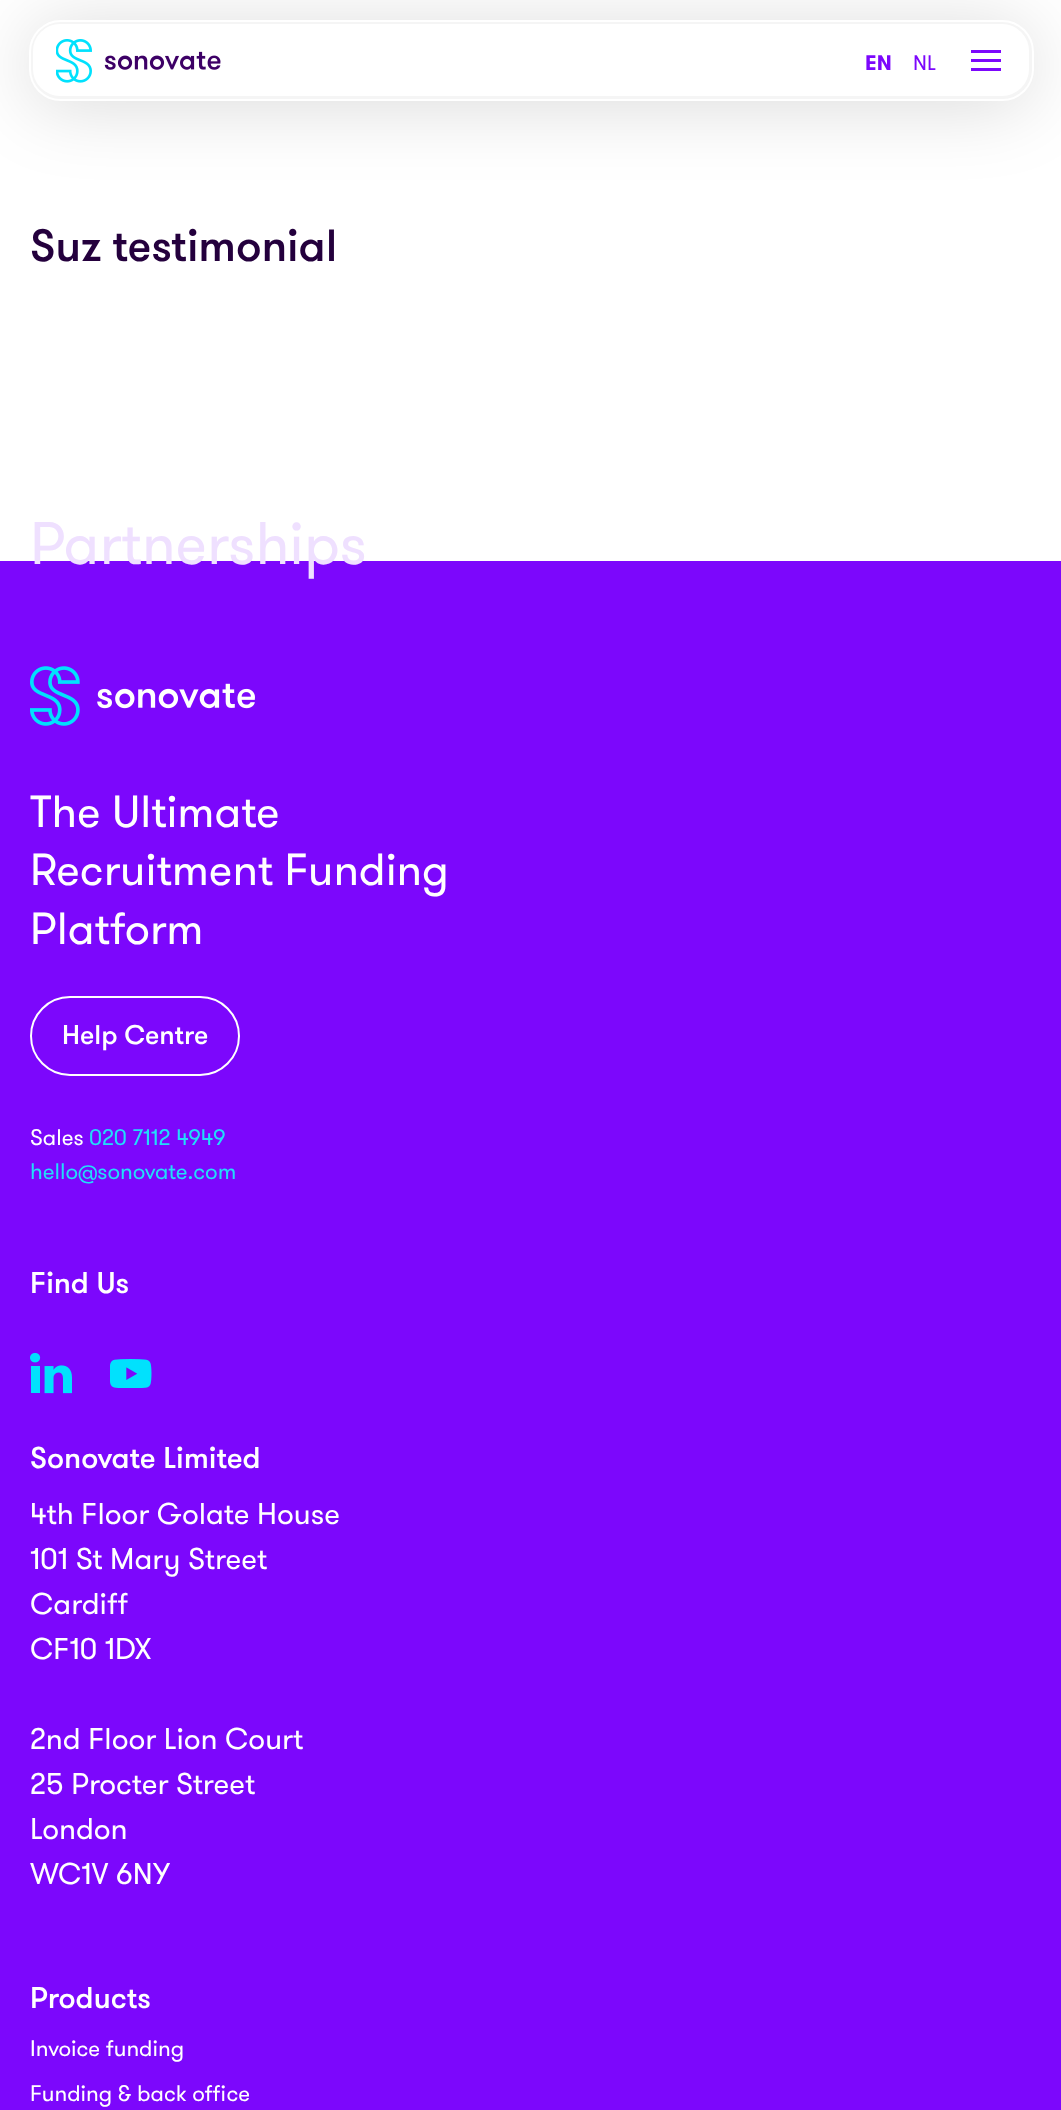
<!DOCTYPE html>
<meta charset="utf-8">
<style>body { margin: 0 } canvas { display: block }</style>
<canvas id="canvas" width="1061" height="2110"></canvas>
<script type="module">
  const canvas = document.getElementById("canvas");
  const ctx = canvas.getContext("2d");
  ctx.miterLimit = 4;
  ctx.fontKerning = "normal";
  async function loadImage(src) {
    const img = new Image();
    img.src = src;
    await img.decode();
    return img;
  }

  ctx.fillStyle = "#ffffff";
  ctx.fillRect(0, 0, 1061, 2110);
  ctx.fillStyle = "rgba(0, 0, 0, 0.15)";
  ctx.filter = "blur(37.5px)";
  ctx.beginPath();
  ctx.roundRect(30, 27, 1002, 78, 30);
  ctx.fill();
  ctx.filter = "none";
  ctx.fillStyle = "#ffffff";
  ctx.beginPath();
  ctx.roundRect(31.5, 22.5, 999, 75, 28.5);
  ctx.fill();
  ctx.strokeStyle = "#f5f5f5";
  ctx.lineWidth = 3;
  ctx.stroke();
  ctx.beginPath();
  ctx.roundRect(30, 21, 1003, 79, 31);
  ctx.strokeStyle = "#ffffff";
  ctx.lineWidth = 2;
  ctx.stroke();
  ctx.drawImage(await loadImage("img1.png"), 56, 39, 165, 44);
  ctx.font = "bold 21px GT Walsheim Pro";
  ctx.fillStyle = "#7c07fc";
  ctx.fillText("EN", 865, 70);
  ctx.font = "21px GT Walsheim Pro";
  ctx.fillText("NL", 913, 70);
  ctx.font = "500 45px GT Walsheim Pro";
  ctx.fillStyle = "#24003d";
  ctx.fillText("Suz testimonial", 30, 261);
  ctx.fillStyle = "#7c07fc";
  ctx.fillRect(971, 50, 30, 3);
  ctx.fillRect(971, 59, 30, 3);
  ctx.fillRect(971, 68, 30, 3);
  ctx.fillRect(0, 561, 1061, 1549);
  ctx.font = "60px GT Walsheim Pro";
  ctx.fillStyle = "#efe0ff";
  ctx.fillText("Partnerships", 30, 564);
  ctx.drawImage(await loadImage("img2.png"), 30, 666, 225, 60);
  ctx.font = "45px GT Walsheim Pro";
  ctx.fillStyle = "#ffffff";
  ctx.fillText("The Ultimate", 30, 827);
  ctx.fillText("Recruitment Funding", 30, 885);
  ctx.fillText("Platform", 30, 944);
  ctx.beginPath();
  ctx.roundRect(31, 997, 208, 78, 39);
  ctx.stroke();
  ctx.font = "500 27px GT Walsheim Pro";
  ctx.fillText("Help Centre", 62, 1044);
  ctx.font = "22.5px GT Walsheim Pro";
  ctx.fillText("Sales", 30, 1145);
  ctx.fillStyle = "#22ddf9";
  ctx.fillText("020 7112 4949", 89, 1145);
  ctx.fillText("hello@sonovate.com", 30, 1179);
  ctx.font = "500 30px GT Walsheim Pro";
  ctx.fillStyle = "#ffffff";
  ctx.fillText("Find Us", 30, 1293);
  ctx.drawImage(await loadImage("img3.png"), 30, 1353, 42, 41);
  ctx.drawImage(await loadImage("img4.png"), 110, 1359, 42, 29);
  ctx.fillText("Sonovate Limited", 30, 1468);
  ctx.font = "30px GT Walsheim Pro";
  ctx.fillText("4th Floor Golate House", 30, 1524);
  ctx.fillText("101 St Mary Street", 30, 1569);
  ctx.fillText("Cardiff", 30, 1614);
  ctx.fillText("CF10 1DX", 30, 1659);
  ctx.fillText("2nd Floor Lion Court", 30, 1749);
  ctx.fillText("25 Procter Street", 30, 1794);
  ctx.fillText("London", 30, 1839);
  ctx.fillText("WC1V 6NY", 30, 1884);
  ctx.font = "500 30px GT Walsheim Pro";
  ctx.fillText("Products", 30, 2008);
  ctx.font = "22.5px GT Walsheim Pro";
  ctx.fillText("Invoice funding", 30, 2056);
  ctx.fillText("Funding & back office", 30, 2101);
</script>
